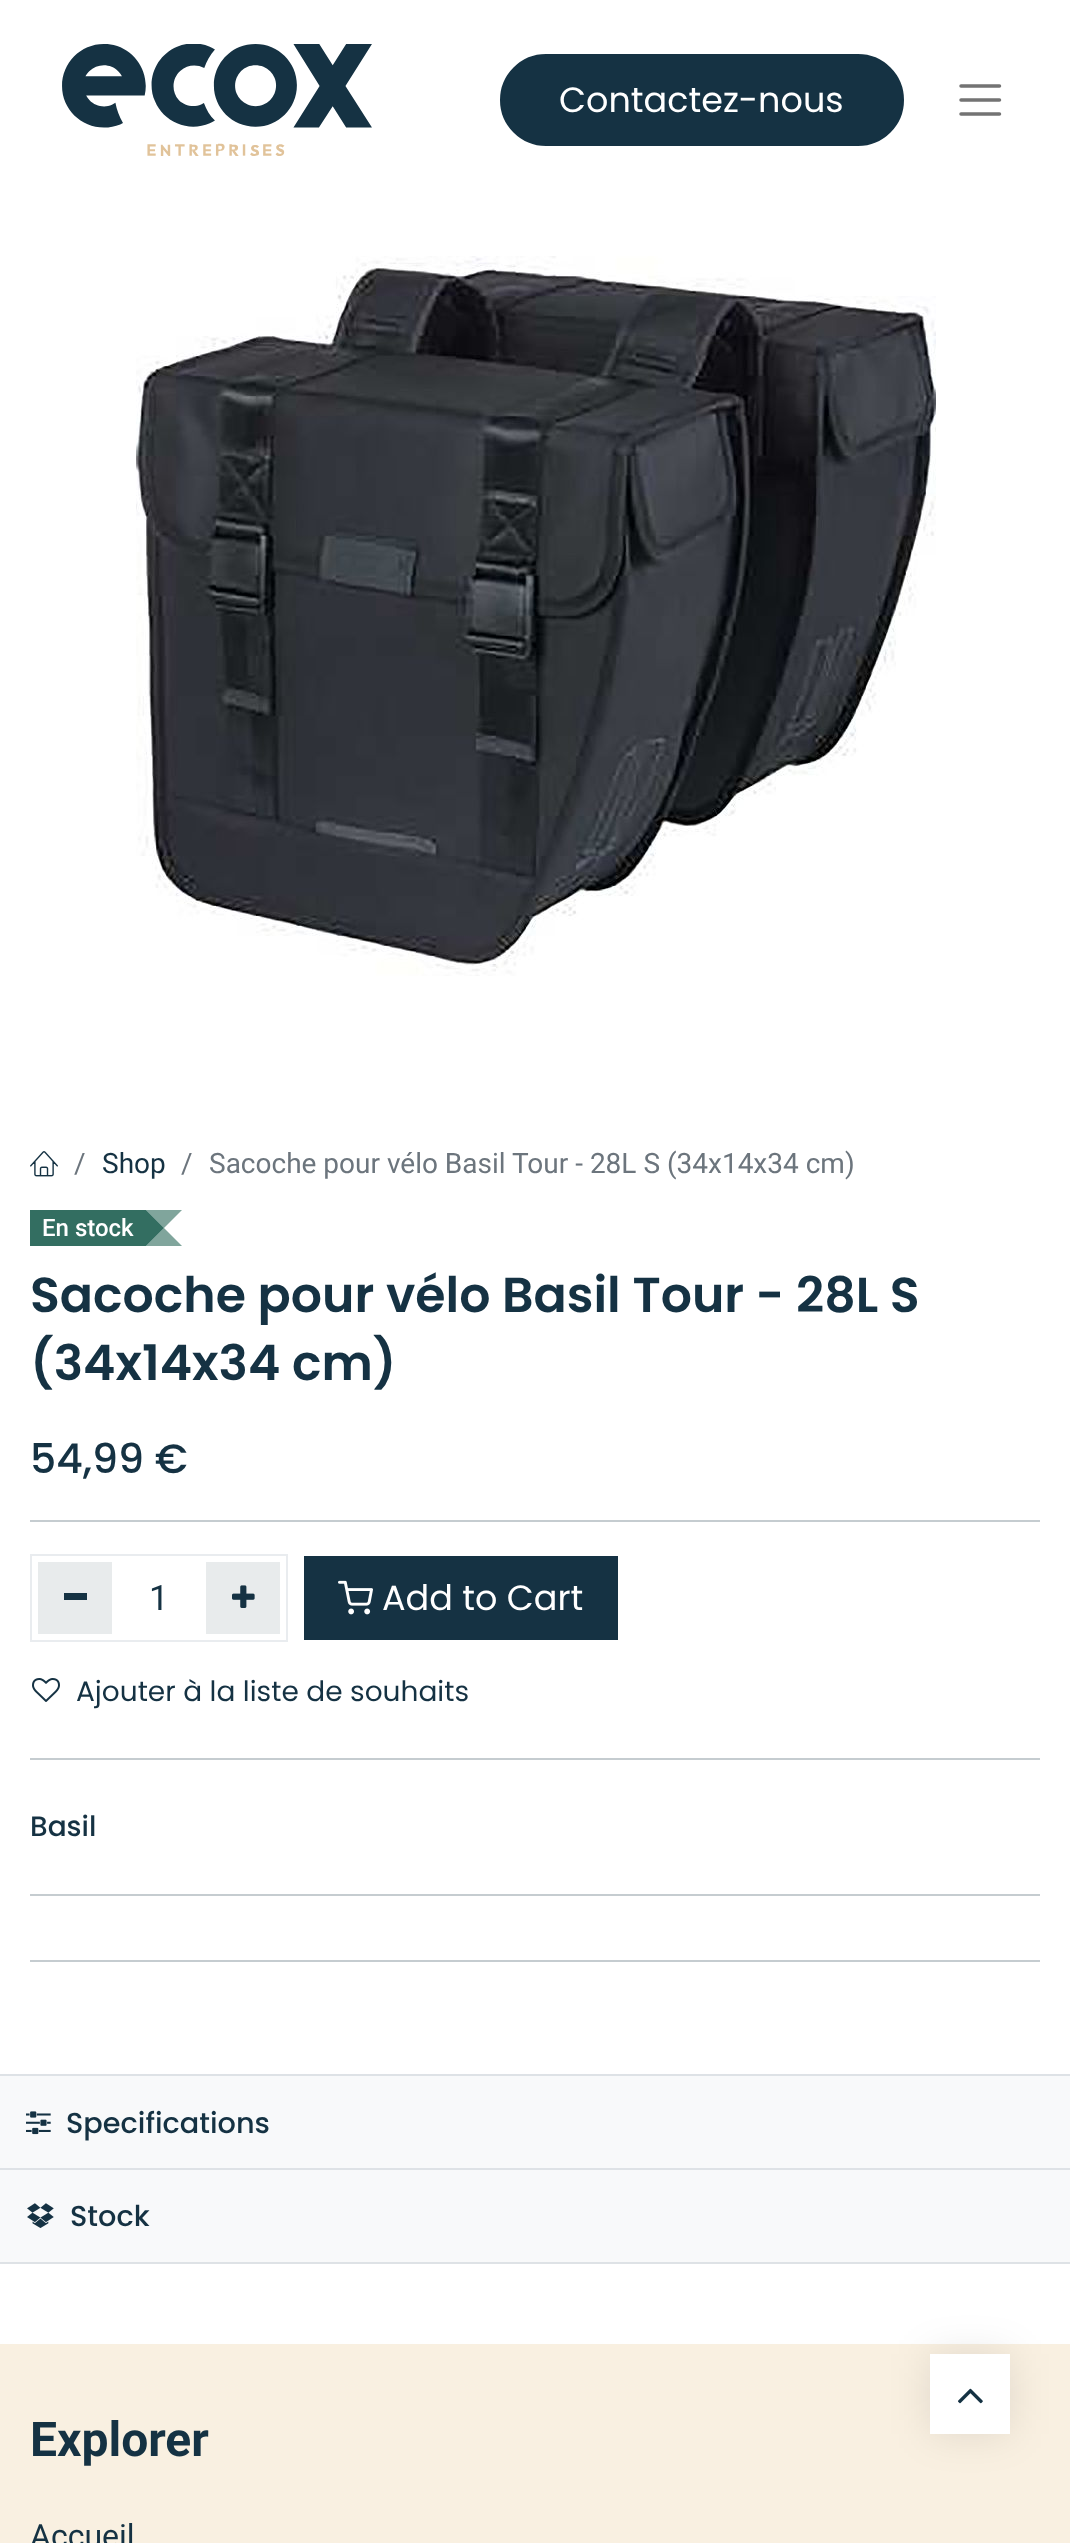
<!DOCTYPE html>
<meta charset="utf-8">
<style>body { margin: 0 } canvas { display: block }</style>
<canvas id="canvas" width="1070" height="2543"></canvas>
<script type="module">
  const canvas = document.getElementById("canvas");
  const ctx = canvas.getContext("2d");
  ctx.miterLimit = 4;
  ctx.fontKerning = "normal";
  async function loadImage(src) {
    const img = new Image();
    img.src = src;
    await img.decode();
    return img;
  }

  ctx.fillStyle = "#ffffff";
  ctx.fillRect(0, 0, 1070, 2543);
  ctx.drawImage(await loadImage("img1.png"), 62, 44, 310, 112);
  ctx.fillStyle = "#153243";
  ctx.beginPath();
  ctx.roundRect(501, 55, 402, 90, 45);
  ctx.fill();
  ctx.strokeStyle = "#153243";
  ctx.lineWidth = 2;
  ctx.stroke();
  ctx.font = "35px Poppins";
  ctx.fillStyle = "#ffffff";
  ctx.fillText("Contactez-nous", 559, 112);
  ctx.beginPath();
  ctx.moveTo(961, 86);
  ctx.lineTo(999.5, 86);
  ctx.moveTo(961, 100);
  ctx.lineTo(999.5, 100);
  ctx.moveTo(961, 114);
  ctx.lineTo(999.5, 114);
  ctx.strokeStyle = "#737373";
  ctx.lineWidth = 3.5;
  ctx.lineCap = "round";
  ctx.stroke();
  ctx.drawImage(await loadImage("img2.png"), 136, 256, 800, 720);
  ctx.drawImage(await loadImage("img3.png"), 30, 1151, 28, 26);
  ctx.font = "28px Roboto";
  ctx.fillStyle = "#6c757d";
  ctx.fillText("/", 74, 1173);
  ctx.fillStyle = "#153243";
  ctx.fillText("Shop", 102, 1173);
  ctx.fillStyle = "#6c757d";
  ctx.fillText("/", 181, 1173);
  ctx.fillText("Sacoche pour vélo Basil Tour - 28L S (34x14x34 cm)", 209, 1173);
  ctx.fillStyle = "#336e61";
  ctx.fillRect(30, 1210, 116, 36);
  ctx.font = "500 24px Roboto";
  ctx.fillStyle = "#ffffff";
  ctx.fillText("En stock", 42, 1236);
  ctx.fillStyle = "#80a59c";
  ctx.beginPath();
  ctx.moveTo(146, 1210);
  ctx.lineTo(182, 1210);
  ctx.lineTo(164, 1228);
  ctx.closePath();
  ctx.moveTo(182, 1246);
  ctx.lineTo(146, 1246);
  ctx.lineTo(164, 1228);
  ctx.closePath();
  ctx.fill();
  ctx.fillStyle = "rgba(0, 74, 57, 0.8)";
  ctx.beginPath();
  ctx.moveTo(146, 1246);
  ctx.lineTo(146, 1210);
  ctx.lineTo(164, 1228);
  ctx.closePath();
  ctx.fill();
  ctx.font = "600 49px Poppins";
  ctx.fillStyle = "#153243";
  ctx.fillText("Sacoche pour vélo Basil Tour - 28L S", 30, 1312);
  ctx.fillText("(34x14x34 cm)", 30, 1380);
  ctx.font = "500 41px Poppins";
  ctx.fillText("54,99 €", 30, 1473);
  ctx.fillStyle = "#c5ccd0";
  ctx.fillRect(30, 1520, 1010, 2);
  ctx.strokeStyle = "#e9ecef";
  ctx.lineWidth = 2;
  ctx.strokeRect(31, 1555, 256, 86);
  ctx.fillStyle = "#e8ebec";
  ctx.fillRect(38, 1562, 74, 72);
  ctx.fillStyle = "#153243";
  ctx.fillRect(64, 1593, 23, 7);
  ctx.font = "35px Roboto";
  ctx.fillText("1", 149, 1610);
  ctx.fillStyle = "#e8ebec";
  ctx.fillRect(206, 1562, 74, 72);
  ctx.drawImage(await loadImage("img4.png"), 232, 1585, 23, 23);
  ctx.fillStyle = "#153243";
  ctx.fillRect(304, 1556, 314, 84);
  ctx.drawImage(await loadImage("img5.png"), 338, 1580, 35, 35);
  ctx.font = "35px Poppins";
  ctx.fillStyle = "#ffffff";
  ctx.fillText("Add to Cart", 382, 1610);
  ctx.drawImage(await loadImage("img6.png"), 32, 1678, 28, 24);
  ctx.font = "28px Poppins";
  ctx.fillStyle = "#153243";
  ctx.fillText("Ajouter à la liste de souhaits", 76, 1701);
  ctx.fillStyle = "#c5ccd0";
  ctx.fillRect(30, 1758, 1010, 2);
  ctx.font = "500 28px Poppins";
  ctx.fillStyle = "#153243";
  ctx.fillText("Basil", 30, 1836);
  ctx.fillStyle = "#c5ccd0";
  ctx.fillRect(30, 1894, 1010, 2);
  ctx.fillRect(30, 1960, 1010, 2);
  ctx.fillStyle = "#f8f9fa";
  ctx.fillRect(0, 2076, 1070, 186);
  ctx.fillStyle = "#dee2e6";
  ctx.fillRect(0, 2074, 1070, 2);
  ctx.drawImage(await loadImage("img7.png"), 26, 2111, 25, 24);
  ctx.font = "500 28.75px Poppins";
  ctx.fillStyle = "#153243";
  ctx.fillText("Specifications", 66, 2133);
  ctx.fillStyle = "#dee2e6";
  ctx.fillRect(0, 2168, 1070, 2);
  ctx.fillRect(0, 2262, 1070, 2);
  ctx.drawImage(await loadImage("img8.png"), 27, 2203, 27, 25);
  ctx.fillStyle = "#153243";
  ctx.fillText("Stock", 70, 2226);
  ctx.fillStyle = "#f9f0e1";
  ctx.fillRect(0, 2344, 1070, 199);
  ctx.font = "bold 48px Roboto";
  ctx.fillStyle = "#153243";
  ctx.fillText("Explorer", 30, 2456);
  ctx.font = "32px Roboto";
  ctx.fillText("Accueil", 30, 2547);
  ctx.fillStyle = "rgba(0, 0, 0, 0.1)";
  ctx.filter = "blur(20px)";
  ctx.beginPath();
  ctx.rect(930, 2354, 80, 80);
  ctx.fill();
  ctx.filter = "none";
  ctx.fillStyle = "#ffffff";
  ctx.fillRect(930, 2354, 80, 80);
  ctx.drawImage(await loadImage("img9.png"), 958, 2388, 25, 16);
</script>
